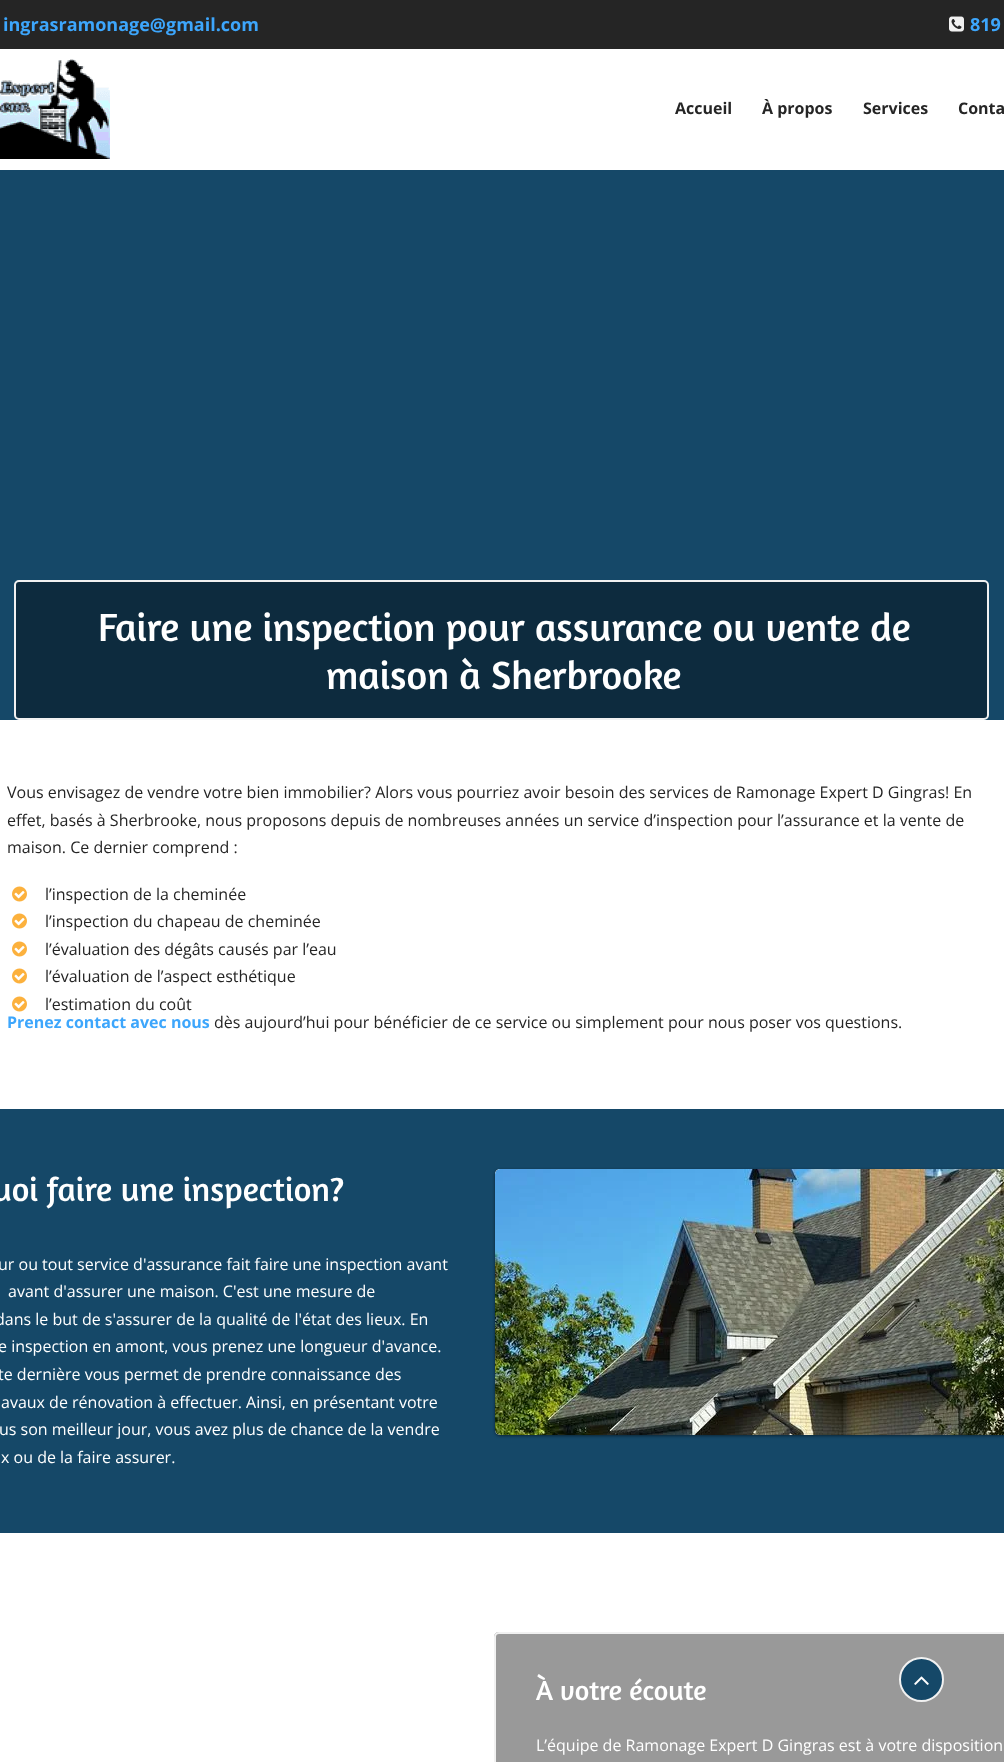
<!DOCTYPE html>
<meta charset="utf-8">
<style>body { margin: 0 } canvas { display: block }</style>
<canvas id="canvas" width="1004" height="1762"></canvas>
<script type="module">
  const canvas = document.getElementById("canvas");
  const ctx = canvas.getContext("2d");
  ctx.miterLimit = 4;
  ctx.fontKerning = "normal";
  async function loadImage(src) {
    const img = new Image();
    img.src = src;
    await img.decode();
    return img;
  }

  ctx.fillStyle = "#ffffff";
  ctx.fillRect(0, 0, 1004, 1762);
  ctx.fillStyle = "#252525";
  ctx.fillRect(0, 0, 1004, 49);
  ctx.font = "bold 18px Open Sans";
  ctx.fillStyle = "#3da6fc";
  ctx.fillText("ingrasramonage@gmail.com", 3, 31);
  ctx.drawImage(await loadImage("img1.png"), 949, 16, 15, 16);
  ctx.fillText("819", 970, 31);
  ctx.drawImage(await loadImage("img2.png"), 0, 59, 110, 100);
  ctx.font = "bold 16px Open Sans";
  ctx.fillStyle = "#252525";
  ctx.fillText("Accueil", 675, 114);
  ctx.fillText("À propos", 762, 114);
  ctx.fillText("Services", 863, 114);
  ctx.fillText("Conta", 958, 114);
  ctx.fillStyle = "#154868";
  ctx.fillRect(0, 170, 1004, 550);
  ctx.fillStyle = "#0d2b3e";
  ctx.beginPath();
  ctx.roundRect(15, 581, 973, 138, 4);
  ctx.fill();
  ctx.strokeStyle = "#f1f1f1";
  ctx.lineWidth = 2;
  ctx.stroke();
  ctx.font = "40px Amaranth";
  ctx.fillStyle = "#ffffff";
  ctx.fillText("Faire une inspection pour assurance ou vente de", 98, 641);
  ctx.fillText("maison à Sherbrooke", 326, 689);
  ctx.font = "16px Open Sans";
  ctx.fillStyle = "#252525";
  ctx.fillText("Vous envisagez de vendre votre bien immobilier? Alors vous pourriez avoir besoin des services de Ramonage Expert D Gingras! En", 7, 798);
  ctx.fillText("effet, basés à Sherbrooke, nous proposons depuis de nombreuses années un service d’inspection pour l’assurance et la vente de", 7, 826);
  ctx.fillText("maison. Ce dernier comprend :", 7, 853);
  ctx.drawImage(await loadImage("img3.png"), 12, 886, 15, 16);
  ctx.fillText("l’inspection de la cheminée", 45, 900);
  ctx.drawImage(await loadImage("img3.png"), 12, 913, 15, 16);
  ctx.fillText("l’inspection du chapeau de cheminée", 45, 927);
  ctx.drawImage(await loadImage("img3.png"), 12, 941, 15, 16);
  ctx.fillText("l’évaluation des dégâts causés par l’eau", 45, 955);
  ctx.drawImage(await loadImage("img3.png"), 12, 968, 15, 16);
  ctx.fillText("l’évaluation de l’aspect esthétique", 45, 982);
  ctx.drawImage(await loadImage("img3.png"), 12, 996, 15, 16);
  ctx.fillText("l’estimation du coût", 45, 1010);
  ctx.font = "bold 16px Open Sans";
  ctx.fillStyle = "#3da6fc";
  ctx.fillText("Prenez contact avec nous", 7, 1028);
  ctx.font = "16px Open Sans";
  ctx.fillStyle = "#252525";
  ctx.fillText("dès aujourd’hui pour bénéficier de ce service ou simplement pour nous poser vos questions.", 214, 1028);
  ctx.fillStyle = "#154868";
  ctx.fillRect(0, 1109, 1004, 424);
  ctx.font = "34px Amaranth";
  ctx.fillStyle = "#ffffff";
  ctx.fillText("uoi faire une inspection?", -7, 1201);
  ctx.font = "16px Open Sans";
  ctx.fillText("ur ou tout service d'assurance fait faire une inspection avant", -2, 1270);
  ctx.fillText("avant d'assurer une maison. C'est une mesure de", 8, 1297);
  ctx.fillText("dans le but de s'assurer de la qualité de l'état des lieux. En", -5, 1325);
  ctx.fillText("e inspection en amont, vous prenez une longueur d'avance.", -2, 1352);
  ctx.fillText("te dernière vous permet de prendre connaissance des", -2, 1380);
  ctx.fillText("avaux de rénovation à effectuer. Ainsi, en présentant votre", 1, 1408);
  ctx.fillText("us son meilleur jour, vous avez plus de chance de la vendre", -1, 1435);
  ctx.fillText("x ou de la faire assurer.", 1, 1463);
  ctx.fillStyle = "rgba(0, 0, 0, 0.5)";
  ctx.filter = "blur(1.5px)";
  ctx.beginPath();
  ctx.roundRect(495, 1170, 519, 266, 5);
  ctx.fill();
  ctx.filter = "none";
  ctx.fillStyle = "#ffffff";
  ctx.beginPath();
  ctx.roundRect(495, 1169, 509, 266, [5, 0, 0, 5]);
  ctx.fill();
  ctx.drawImage(await loadImage("img4.png"), 495, 1169, 509, 266);
  ctx.fillStyle = "#999999";
  ctx.beginPath();
  ctx.moveTo(499, 1632);
  ctx.lineTo(1004, 1632);
  ctx.lineTo(1004, 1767);
  ctx.lineTo(499, 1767);
  ctx.bezierCurveTo(496, 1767, 494, 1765, 494, 1762);
  ctx.lineTo(494, 1637);
  ctx.bezierCurveTo(494, 1634, 496, 1632, 499, 1632);
  ctx.closePath();
  ctx.fill();
  ctx.beginPath();
  ctx.roundRect(495, 1633, 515, 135, 4);
  ctx.stroke();
  ctx.font = "28px Amaranth";
  ctx.fillStyle = "#ffffff";
  ctx.fillText("À votre écoute", 536, 1700);
  ctx.font = "16px Open Sans";
  ctx.fillText("L’équipe de Ramonage Expert D Gingras est à votre disposition", 536, 1751);
  ctx.fillStyle = "#154868";
  ctx.beginPath();
  ctx.arc(921.5, 1679.5, 21.5, 0, Math.PI * 2);
  ctx.fill();
  ctx.stroke();
  ctx.drawImage(await loadImage("img5.png"), 914, 1676, 15, 9);
</script>
